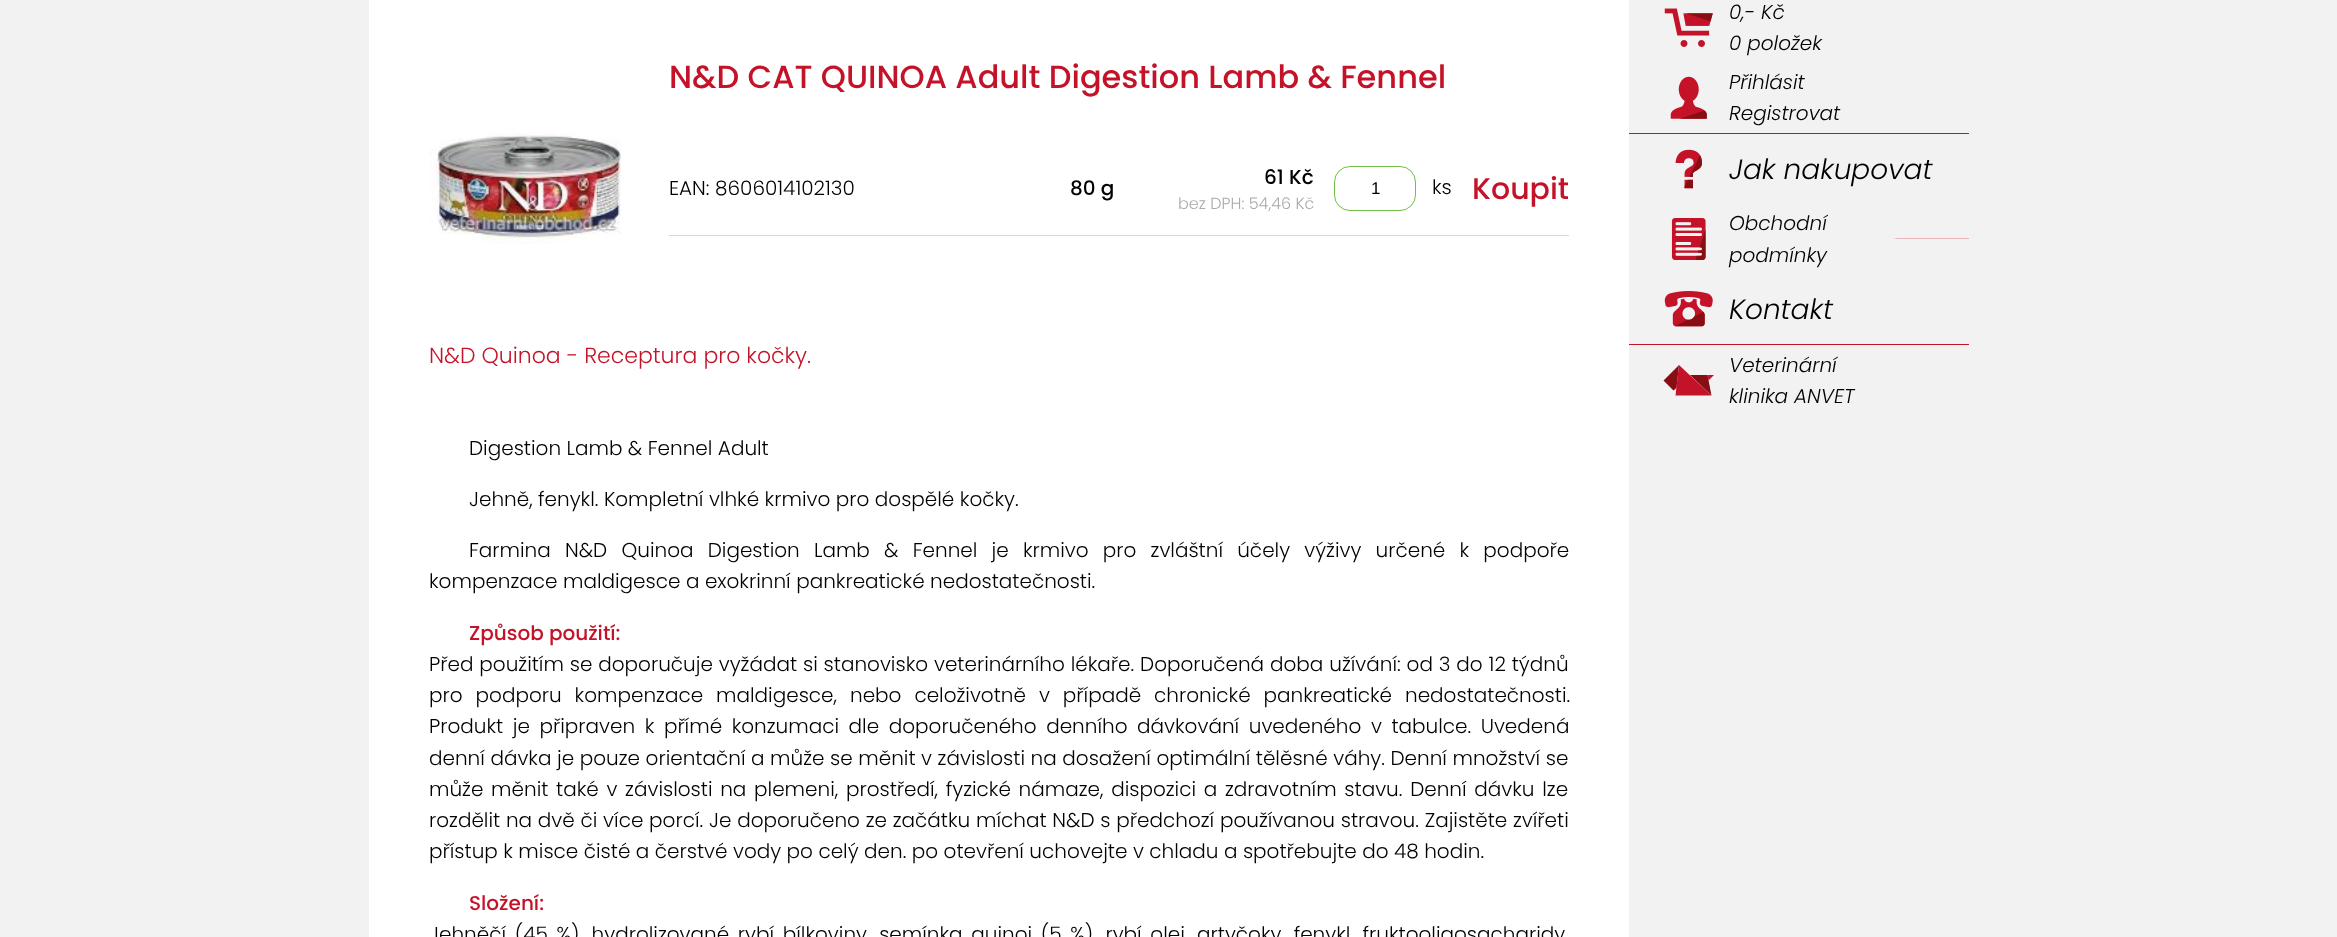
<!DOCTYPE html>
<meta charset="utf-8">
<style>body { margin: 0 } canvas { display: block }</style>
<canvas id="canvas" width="2337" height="937"></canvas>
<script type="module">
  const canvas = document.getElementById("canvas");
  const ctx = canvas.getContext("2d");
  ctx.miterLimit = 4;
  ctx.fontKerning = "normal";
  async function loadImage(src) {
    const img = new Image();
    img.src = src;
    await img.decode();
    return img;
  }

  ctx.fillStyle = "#f2f2f2";
  ctx.fillRect(0, 0, 2337, 937);
  ctx.fillStyle = "#ffffff";
  ctx.fillRect(369, 0, 1260, 937);
  ctx.font = "500 32px Poppins";
  ctx.fillStyle = "#c41329";
  ctx.fillText("N&D CAT QUINOA Adult Digestion Lamb & Fennel", 669, 88);
  ctx.drawImage(await loadImage("img1.png"), 429, 133, 193, 111);
  ctx.fillStyle = "#c0f090";
  ctx.fillRect(669, 235, 900, 1);
  ctx.font = "300 20px Poppins";
  ctx.fillStyle = "#000000";
  ctx.fillText("EAN: 8606014102130", 669, 195);
  ctx.font = "500 20px Poppins";
  ctx.fillText("80 g", 1070, 195);
  ctx.fillText("61 Kč", 1264, 184);
  ctx.font = "300 16px Poppins";
  ctx.fillStyle = "#aaaaaa";
  ctx.fillText("bez DPH: 54,46 Kč", 1178, 209);
  ctx.beginPath();
  ctx.roundRect(1334.5, 166.5, 81, 44, 15.5);
  ctx.strokeStyle = "#71bf44";
  ctx.stroke();
  ctx.font = "17px Liberation Sans";
  ctx.fillStyle = "#000000";
  ctx.fillText("1", 1371, 194);
  ctx.font = "300 20px Poppins";
  ctx.fillText("ks", 1432, 194);
  ctx.font = "500 30px Poppins";
  ctx.fillStyle = "#c41329";
  ctx.fillText("Koupit", 1472, 199);
  ctx.font = "300 22px Poppins";
  ctx.fillText("N&D Quinoa - Receptura pro kočky.", 429, 363);
  ctx.font = "300 20px Poppins";
  ctx.fillStyle = "#000000";
  ctx.fillText("Digestion Lamb & Fennel Adult", 469, 455);
  ctx.fillText("Jehně, fenykl. Kompletní vlhké krmivo pro dospělé kočky.", 469, 506);
  ctx.wordSpacing = "8.75px";
  ctx.fillText("Farmina N&D Quinoa Digestion Lamb & Fennel je krmivo pro zvláštní účely výživy určené k podpoře", 469, 557);
  ctx.wordSpacing = "0px";
  ctx.fillText("kompenzace maldigesce a exokrinní pankreatické nedostatečnosti.", 429, 588);
  ctx.font = "500 20px Poppins";
  ctx.fillStyle = "#c41329";
  ctx.fillText("Způsob použití:", 469, 640);
  ctx.wordSpacing = "0.4px";
  ctx.font = "300 20px Poppins";
  ctx.fillStyle = "#000000";
  ctx.fillText("Před použitím se doporučuje vyžádat si stanovisko veterinárního lékaře. Doporučená doba užívání: od 3 do 12 týdnů", 429, 671);
  ctx.wordSpacing = "7.5px";
  ctx.fillText("pro podporu kompenzace maldigesce, nebo celoživotně v případě chronické pankreatické nedostatečnosti.", 429, 702);
  ctx.wordSpacing = "4.1px";
  ctx.fillText("Produkt je připraven k přímé konzumaci dle doporučeného denního dávkování uvedeného v tabulce. Uvedená", 429, 733);
  ctx.wordSpacing = "0.1px";
  ctx.fillText("denní dávka je pouze orientační a může se měnit v závislosti na dosažení optimální tělěsné váhy. Denní množství se", 429, 765);
  ctx.wordSpacing = "2.25px";
  ctx.fillText("může měnit také v závislosti na plemeni, prostředí, fyzické námaze, dispozici a zdravotním stavu. Denní dávku lze", 429, 796);
  ctx.wordSpacing = "0.3px";
  ctx.fillText("rozdělit na dvě či více porcí. Je doporučeno ze začátku míchat N&D s předchozí používanou stravou. Zajistěte zvířeti", 429, 827);
  ctx.wordSpacing = "0px";
  ctx.fillText("přístup k misce čisté a čerstvé vody po celý den. po otevření uchovejte v chladu a spotřebujte do 48 hodin.", 429, 858);
  ctx.font = "500 20px Poppins";
  ctx.fillStyle = "#c41329";
  ctx.fillText("Složení:", 469, 910);
  ctx.wordSpacing = "3.25px";
  ctx.font = "300 20px Poppins";
  ctx.fillStyle = "#000000";
  ctx.fillText("Jehněčí (45 %), hydrolizované rybí bílkoviny, semínka quinoi (5 %), rybí olej, artyčoky, fenykl, fruktooligosacharidy", 429, 941);
  ctx.drawImage(await loadImage("img2.png"), 1664, 8, 49, 39);
  ctx.wordSpacing = "0px";
  ctx.font = "italic 300 20px Poppins";
  ctx.fillText("0,- Kč", 1729, 19);
  ctx.fillText("0 položek", 1729, 50);
  ctx.drawImage(await loadImage("img3.png"), 1670, 76, 37, 43);
  ctx.fillText("Přihlásit", 1729, 89);
  ctx.fillText("Registrovat", 1729, 120);
  ctx.fillStyle = "#c41329";
  ctx.fillRect(1629, 133, 340, 1);
  ctx.drawImage(await loadImage("img4.png"), 1675, 149, 27, 40);
  ctx.font = "italic 300 28px Poppins";
  ctx.fillStyle = "#000000";
  ctx.fillText("Jak nakupovat", 1729, 179);
  ctx.drawImage(await loadImage("img5.png"), 1671, 218, 35, 42);
  ctx.drawImage(await loadImage("img6.png"), 1894, 238, 75, 1);
  ctx.font = "italic 300 20px Poppins";
  ctx.fillText("Obchodní", 1729, 230);
  ctx.fillText("podmínky", 1729, 262);
  ctx.drawImage(await loadImage("img7.png"), 1664, 291, 49, 36);
  ctx.font = "italic 300 28px Poppins";
  ctx.fillText("Kontakt", 1729, 319);
  ctx.fillStyle = "#c41329";
  ctx.fillRect(1629, 344, 340, 1);
  ctx.fillStyle = "#870e12";
  ctx.beginPath();
  ctx.moveTo(1707.5, 375);
  ctx.lineTo(1711.5, 395.5);
  ctx.lineTo(1690, 375);
  ctx.closePath();
  ctx.moveTo(1679, 365);
  ctx.lineTo(1663.5, 380.5);
  ctx.lineTo(1673.5, 390.5);
  ctx.lineTo(1676.5, 388);
  ctx.closePath();
  ctx.fill();
  ctx.fillStyle = "#c41329";
  ctx.beginPath();
  ctx.moveTo(1707.5, 375);
  ctx.lineTo(1714, 375);
  ctx.lineTo(1708.5, 380.5);
  ctx.closePath();
  ctx.fill();
  ctx.beginPath();
  ctx.moveTo(1711.5, 395.5);
  ctx.lineTo(1675.5, 395.5);
  ctx.lineTo(1679, 365);
  ctx.closePath();
  ctx.fill();
  ctx.font = "italic 300 20px Poppins";
  ctx.fillStyle = "#000000";
  ctx.fillText("Veterinární", 1729, 372);
  ctx.fillText("klinika ANVET", 1729, 403);
</script>
